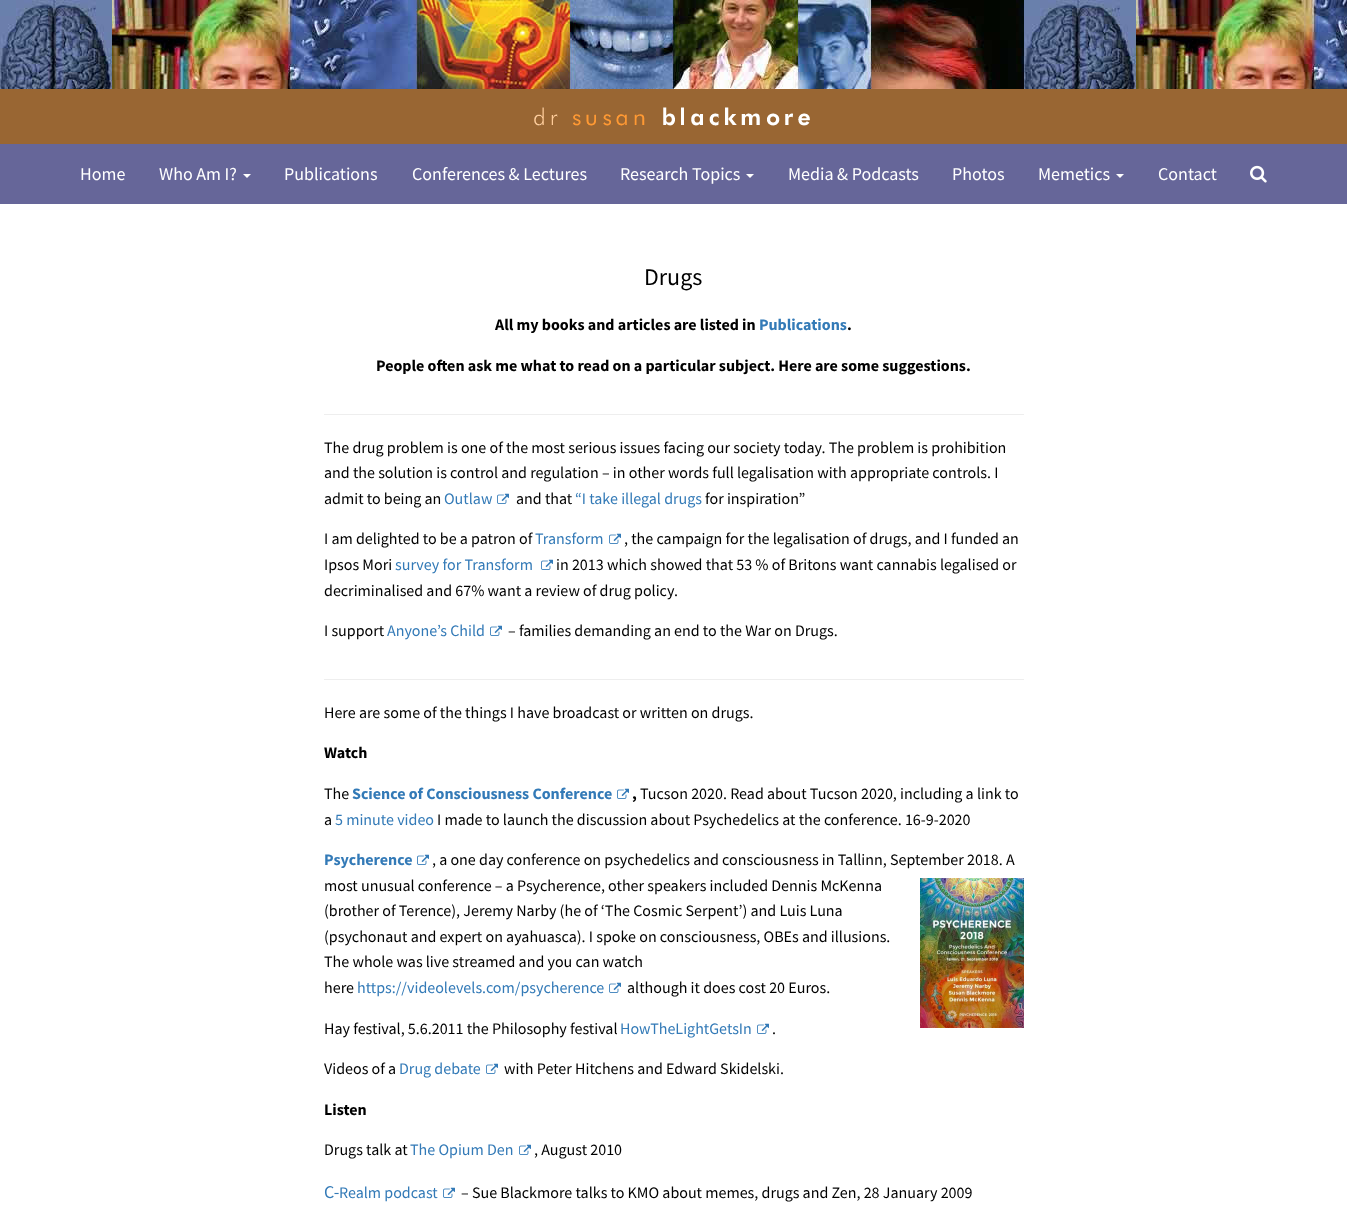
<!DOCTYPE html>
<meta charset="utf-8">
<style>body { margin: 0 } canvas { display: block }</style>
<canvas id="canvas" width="1347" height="1205"></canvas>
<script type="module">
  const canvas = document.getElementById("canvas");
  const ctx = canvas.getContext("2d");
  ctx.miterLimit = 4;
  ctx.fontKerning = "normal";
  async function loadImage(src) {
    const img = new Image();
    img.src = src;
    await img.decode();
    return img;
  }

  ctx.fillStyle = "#ffffff";
  ctx.fillRect(0, 0, 1347, 1205);
  ctx.fillStyle = "#996633";
  ctx.fillRect(0, 89, 1347, 55);
  ctx.drawImage(await loadImage("img1.png"), 0, 0, 1347, 89);
  ctx.drawImage(await loadImage("img2.png"), 534, 107, 276, 19);
  ctx.fillStyle = "#666699";
  ctx.fillRect(0, 144, 1347, 60);
  ctx.font = "18px Source Sans Pro";
  ctx.fillStyle = "#ffffff";
  ctx.fillText("Home", 80, 180);
  ctx.fillText("Who Am I?", 159, 180);
  ctx.beginPath();
  ctx.moveTo(243, 174);
  ctx.lineTo(251, 174);
  ctx.lineTo(247, 178);
  ctx.closePath();
  ctx.fill();
  ctx.fillText("Publications", 284, 180);
  ctx.fillText("Conferences & Lectures", 412, 180);
  ctx.fillText("Research Topics", 620, 180);
  ctx.beginPath();
  ctx.moveTo(746, 174);
  ctx.lineTo(754, 174);
  ctx.lineTo(750, 178);
  ctx.closePath();
  ctx.fill();
  ctx.fillText("Media & Podcasts", 788, 180);
  ctx.fillText("Photos", 952, 180);
  ctx.fillText("Memetics", 1038, 180);
  ctx.beginPath();
  ctx.moveTo(1116, 174);
  ctx.lineTo(1124, 174);
  ctx.lineTo(1120, 178);
  ctx.closePath();
  ctx.fill();
  ctx.fillText("Contact", 1158, 180);
  ctx.drawImage(await loadImage("img3.png"), 1250, 165, 17, 18);
  ctx.font = "24px Source Sans Pro";
  ctx.fillStyle = "#000000";
  ctx.fillText("Drugs", 644, 285);
  ctx.font = "bold 16px Source Sans Pro";
  ctx.fillText("All my books and articles are listed in", 495, 330);
  ctx.fillStyle = "#337ab7";
  ctx.fillText("Publications", 759, 330);
  ctx.fillStyle = "#000000";
  ctx.fillText(".", 847, 330);
  ctx.fillText("People often ask me what to read on a particular subject. Here are some suggestions.", 376, 371);
  ctx.fillStyle = "#eeeeee";
  ctx.fillRect(324, 414, 700, 1);
  ctx.font = "16px Source Sans Pro";
  ctx.fillStyle = "#000000";
  ctx.fillText("The drug problem is one of the most serious issues facing our society today. The problem is prohibition", 324, 453);
  ctx.fillText("and the solution is control and regulation – in other words full legalisation with appropriate controls. I", 324, 478);
  ctx.fillText("admit to being an", 324, 504);
  ctx.fillStyle = "#337ab7";
  ctx.fillText("Outlaw", 444, 504);
  ctx.drawImage(await loadImage("img4.png"), 497, 493, 12, 11);
  ctx.fillStyle = "#000000";
  ctx.fillText("and that", 516, 504);
  ctx.fillStyle = "#337ab7";
  ctx.fillText("“I take illegal drugs", 575, 504);
  ctx.fillStyle = "#000000";
  ctx.fillText("for inspiration”", 705, 504);
  ctx.fillText("I am delighted to be a patron of", 324, 544);
  ctx.fillStyle = "#337ab7";
  ctx.fillText("Transform", 535, 544);
  ctx.drawImage(await loadImage("img4.png"), 609, 533, 12, 11);
  ctx.fillStyle = "#000000";
  ctx.fillText(", the campaign for the legalisation of drugs, and I funded an", 624, 544);
  ctx.fillText("Ipsos Mori", 324, 570);
  ctx.fillStyle = "#337ab7";
  ctx.fillText("survey for Transform", 395, 570);
  ctx.drawImage(await loadImage("img4.png"), 541, 559, 12, 11);
  ctx.fillStyle = "#000000";
  ctx.fillText("in 2013 which showed that 53 % of Britons want cannabis legalised or", 556, 570);
  ctx.fillText("decriminalised and 67% want a review of drug policy.", 324, 596);
  ctx.fillText("I support", 324, 636);
  ctx.fillStyle = "#337ab7";
  ctx.fillText("Anyone’s Child", 387, 636);
  ctx.drawImage(await loadImage("img4.png"), 490, 625, 12, 11);
  ctx.fillStyle = "#000000";
  ctx.fillText("– families demanding an end to the War on Drugs.", 508, 636);
  ctx.fillStyle = "#eeeeee";
  ctx.fillRect(324, 679, 700, 1);
  ctx.fillStyle = "#000000";
  ctx.fillText("Here are some of the things I have broadcast or written on drugs.", 324, 718);
  ctx.font = "bold 16px Source Sans Pro";
  ctx.fillText("Watch", 324, 758);
  ctx.font = "16px Source Sans Pro";
  ctx.fillText("The", 324, 799);
  ctx.font = "bold 16px Source Sans Pro";
  ctx.fillStyle = "#337ab7";
  ctx.fillText("Science of Consciousness Conference", 352, 799);
  ctx.drawImage(await loadImage("img4.png"), 617, 788, 12, 11);
  ctx.fillStyle = "#000000";
  ctx.fillText(",", 632, 799);
  ctx.font = "16px Source Sans Pro";
  ctx.fillText("Tucson 2020. Read about Tucson 2020, including a link to", 640, 799);
  ctx.fillText("a", 324, 825);
  ctx.fillStyle = "#337ab7";
  ctx.fillText("5 minute video", 335, 825);
  ctx.fillStyle = "#000000";
  ctx.fillText("I made to launch the discussion about Psychedelics at the conference. 16-9-2020", 437, 825);
  ctx.font = "bold 16px Source Sans Pro";
  ctx.fillStyle = "#337ab7";
  ctx.fillText("Psycherence", 324, 865);
  ctx.drawImage(await loadImage("img4.png"), 417, 854, 12, 11);
  ctx.font = "16px Source Sans Pro";
  ctx.fillStyle = "#000000";
  ctx.fillText(", a one day conference on psychedelics and consciousness in Tallinn, September 2018. A", 432, 865);
  ctx.fillText("most unusual conference – a Psycherence, other speakers included Dennis McKenna", 324, 891);
  ctx.drawImage(await loadImage("img5.png"), 920, 878, 104, 150);
  ctx.fillText("(brother of Terence), Jeremy Narby (he of ‘The Cosmic Serpent’) and Luis Luna", 324, 916);
  ctx.fillText("(psychonaut and expert on ayahuasca). I spoke on consciousness, OBEs and illusions.", 324, 942);
  ctx.fillText("The whole was live streamed and you can watch", 324, 967);
  ctx.fillText("here", 324, 993);
  ctx.fillStyle = "#337ab7";
  ctx.fillText("https://videolevels.com/psycherence", 357, 993);
  ctx.drawImage(await loadImage("img4.png"), 609, 982, 12, 11);
  ctx.fillStyle = "#000000";
  ctx.fillText("although it does cost 20 Euros.", 627, 993);
  ctx.fillText("Hay festival, 5.6.2011 the Philosophy festival", 324, 1034);
  ctx.fillStyle = "#337ab7";
  ctx.fillText("HowTheLightGetsIn", 620, 1034);
  ctx.drawImage(await loadImage("img4.png"), 757, 1023, 12, 11);
  ctx.fillStyle = "#000000";
  ctx.fillText(".", 772, 1034);
  ctx.fillText("Videos of a", 324, 1074);
  ctx.fillStyle = "#337ab7";
  ctx.fillText("Drug debate", 399, 1074);
  ctx.drawImage(await loadImage("img4.png"), 486, 1063, 12, 11);
  ctx.fillStyle = "#000000";
  ctx.fillText("with Peter Hitchens and Edward Skidelski.", 504, 1074);
  ctx.font = "bold 16px Source Sans Pro";
  ctx.fillText("Listen", 324, 1115);
  ctx.font = "16px Source Sans Pro";
  ctx.fillText("Drugs talk at", 324, 1155);
  ctx.fillStyle = "#337ab7";
  ctx.fillText("The Opium Den", 410, 1155);
  ctx.drawImage(await loadImage("img4.png"), 519, 1144, 12, 11);
  ctx.fillStyle = "#000000";
  ctx.fillText(", August 2010", 534, 1155);
  ctx.font = "18px Source Sans Pro";
  ctx.fillStyle = "#337ab7";
  ctx.fillText("C-", 324, 1198);
  ctx.font = "16px Source Sans Pro";
  ctx.fillText("Realm podcast", 339, 1198);
  ctx.drawImage(await loadImage("img4.png"), 443, 1187, 12, 11);
  ctx.fillStyle = "#000000";
  ctx.fillText("– Sue Blackmore talks to KMO about memes, drugs and Zen, 28 January 2009", 461, 1198);
</script>
